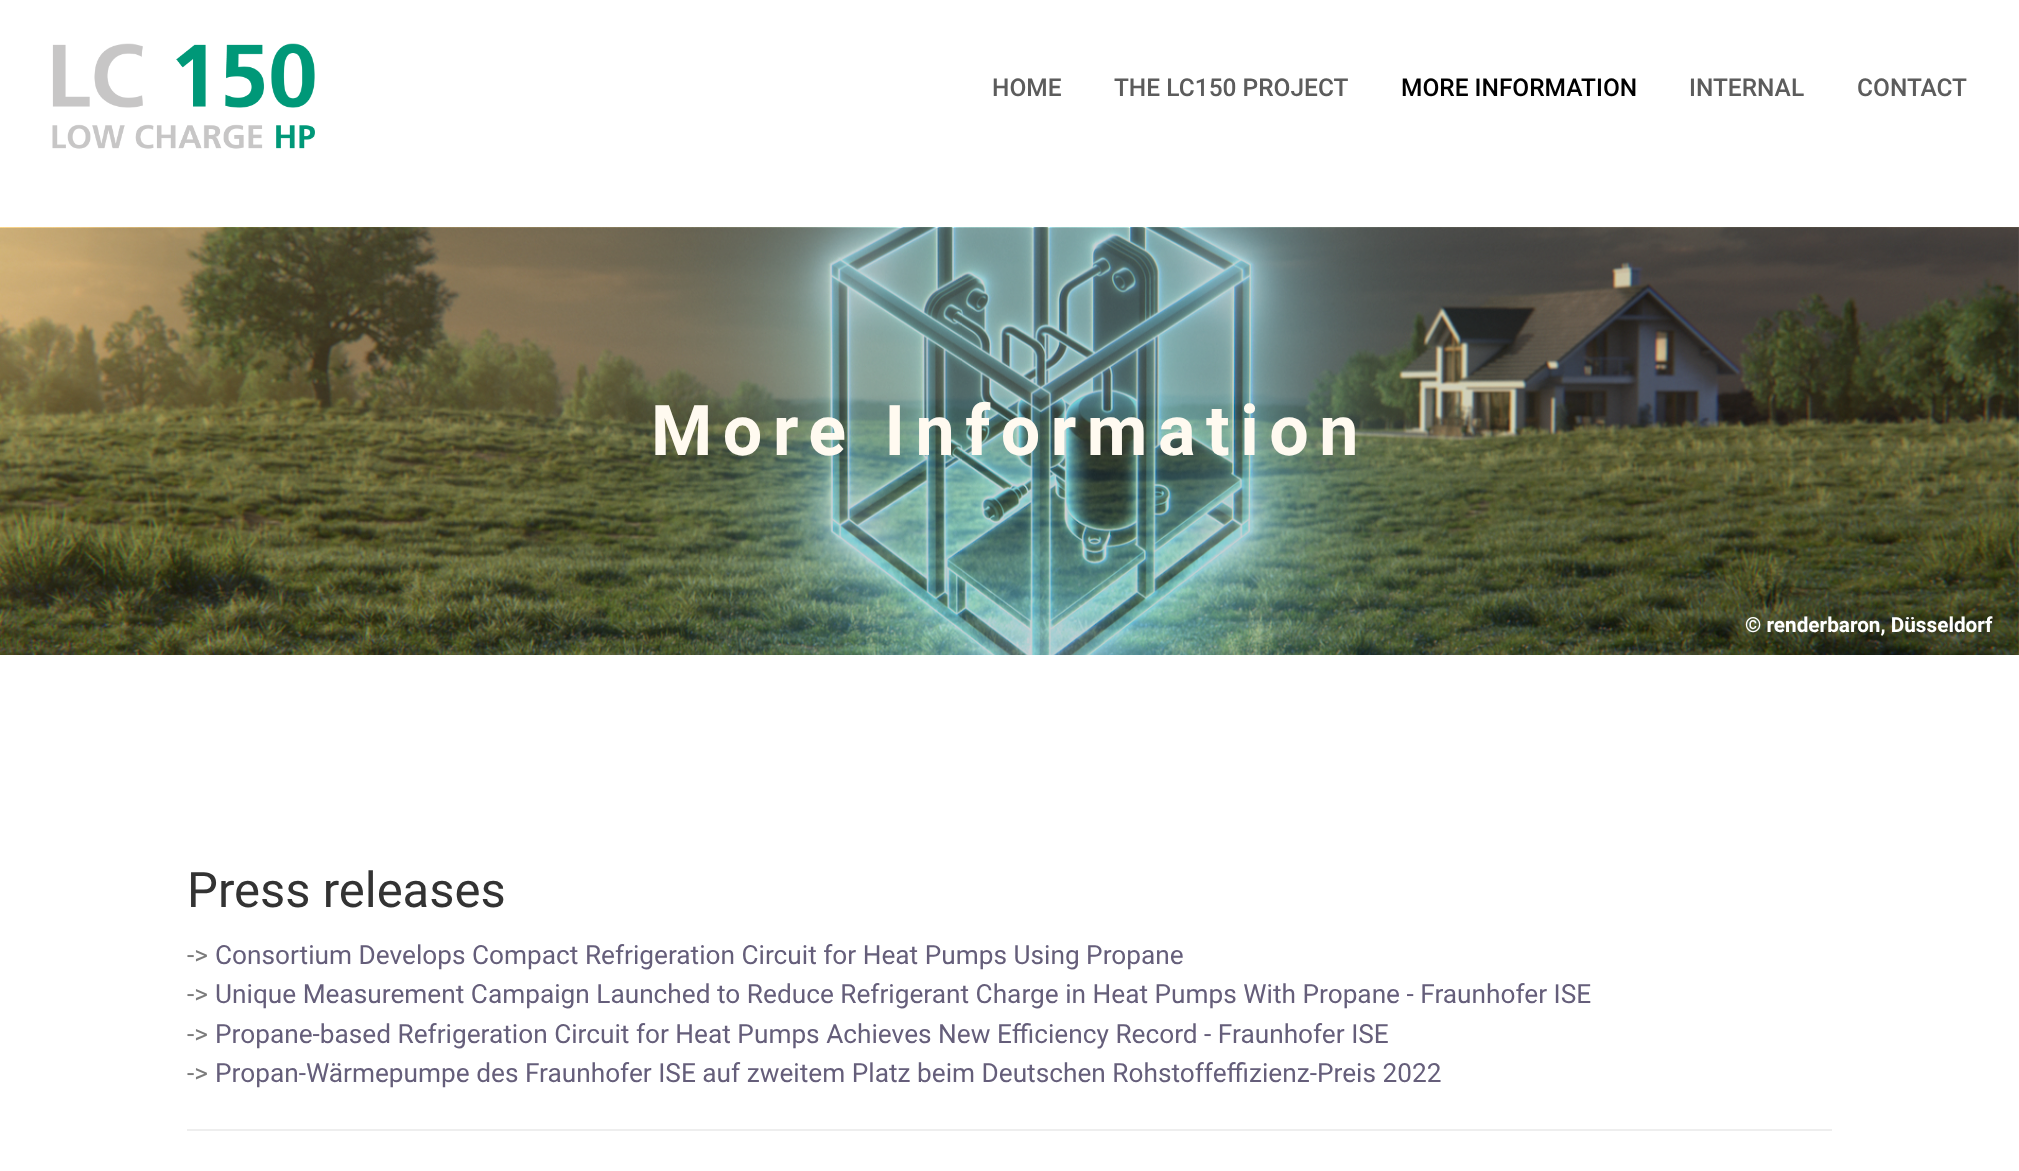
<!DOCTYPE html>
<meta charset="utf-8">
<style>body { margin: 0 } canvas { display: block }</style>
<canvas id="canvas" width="2019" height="1171"></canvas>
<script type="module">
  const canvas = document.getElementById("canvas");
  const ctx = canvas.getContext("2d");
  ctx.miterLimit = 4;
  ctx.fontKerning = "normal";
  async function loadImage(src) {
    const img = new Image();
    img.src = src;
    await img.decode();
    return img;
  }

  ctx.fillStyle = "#ffffff";
  ctx.fillRect(0, 0, 2019, 1171);
  ctx.drawImage(await loadImage("img1.png"), 52, 43, 263, 106);
  ctx.font = "500 24.5px Roboto";
  ctx.fillStyle = "#5c5c5c";
  ctx.fillText("HOME", 992, 96);
  ctx.fillText("THE LC150 PROJECT", 1114, 96);
  ctx.fillStyle = "#000000";
  ctx.fillText("MORE INFORMATION", 1401, 96);
  ctx.fillStyle = "#5c5c5c";
  ctx.fillText("INTERNAL", 1689, 96);
  ctx.fillText("CONTACT", 1857, 96);
  ctx.drawImage(await loadImage("img2.png"), 0, 227, 2019, 428);
  ctx.letterSpacing = "10.5px";
  ctx.font = "bold 70px Roboto";
  ctx.fillStyle = "#fffaf0";
  ctx.fillText("More Information", 651, 455);
  ctx.letterSpacing = "0px";
  ctx.font = "bold 20.75px Roboto";
  ctx.fillStyle = "#ffffff";
  ctx.fillText("© renderbaron, Düsseldorf", 1745, 632);
  ctx.font = "49px Roboto";
  ctx.fillStyle = "#333333";
  ctx.fillText("Press releases", 187, 907);
  ctx.font = "26.25px Roboto";
  ctx.fillStyle = "#7b7b7b";
  ctx.fillText("->", 187, 964);
  ctx.fillStyle = "#655e7a";
  ctx.fillText("Consortium Develops Compact Refrigeration Circuit for Heat Pumps Using Propane", 215, 964);
  ctx.fillStyle = "#7b7b7b";
  ctx.fillText("->", 187, 1003);
  ctx.fillStyle = "#655e7a";
  ctx.fillText("Unique Measurement Campaign Launched to Reduce Refrigerant Charge in Heat Pumps With Propane - Fraunhofer ISE", 215, 1003);
  ctx.fillStyle = "#7b7b7b";
  ctx.fillText("->", 187, 1043);
  ctx.fillStyle = "#655e7a";
  ctx.fillText("Propane-based Refrigeration Circuit for Heat Pumps Achieves New Efficiency Record - Fraunhofer ISE", 215, 1043);
  ctx.fillStyle = "#7b7b7b";
  ctx.fillText("->", 187, 1082);
  ctx.fillStyle = "#655e7a";
  ctx.fillText("Propan-Wärmepumpe des Fraunhofer ISE auf zweitem Platz beim Deutschen Rohstoffeffizienz-Preis 2022", 215, 1082);
  ctx.fillStyle = "#eeeeee";
  ctx.fillRect(187, 1129, 1645, 2);
</script>
